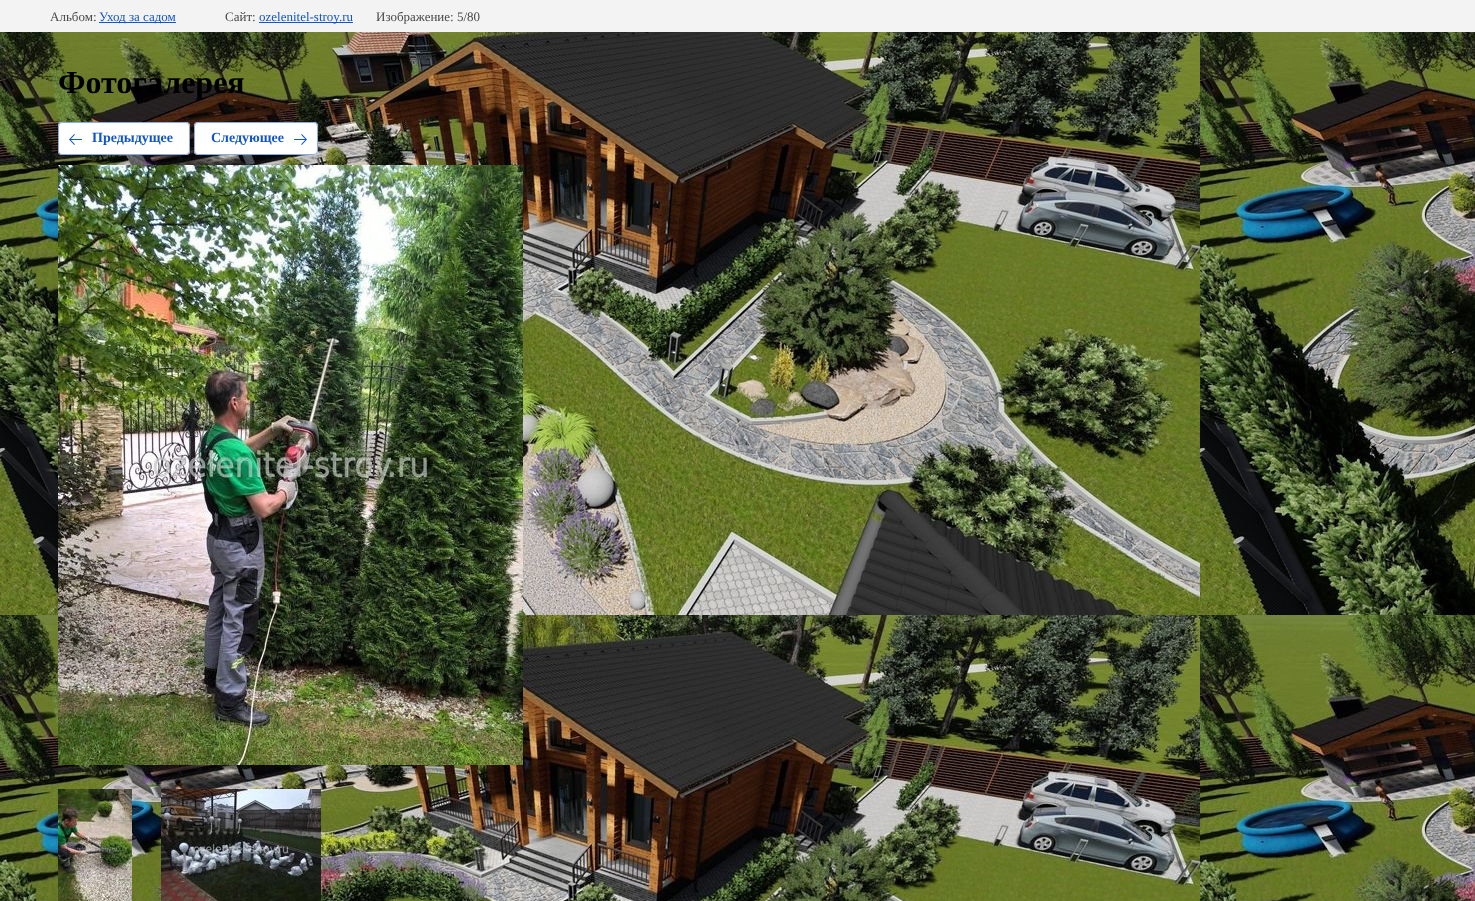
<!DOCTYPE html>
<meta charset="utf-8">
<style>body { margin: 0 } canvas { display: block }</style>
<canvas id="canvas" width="1475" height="901"></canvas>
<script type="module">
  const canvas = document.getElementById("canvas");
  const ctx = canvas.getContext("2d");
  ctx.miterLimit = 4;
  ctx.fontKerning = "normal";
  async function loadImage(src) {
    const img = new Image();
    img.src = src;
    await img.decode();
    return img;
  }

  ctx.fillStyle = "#ffffff";
  ctx.fillRect(0, 0, 1475, 901);
  ctx.drawImage(await loadImage("img1.png"), 0, 32, 1475, 869);
  ctx.fillStyle = "#f3f3f3";
  ctx.fillRect(0, 0, 1475, 32);
  ctx.font = "13px Liberation Serif";
  ctx.fillStyle = "#484848";
  ctx.fillText("Альбом:", 50, 21);
  ctx.fillStyle = "#1155cc";
  ctx.fillRect(99, 22, 77, 1);
  ctx.fillText("Уход за садом", 99, 21);
  ctx.fillStyle = "#484848";
  ctx.fillText("Сайт:", 225, 21);
  ctx.fillStyle = "#1155cc";
  ctx.fillRect(259, 22, 94, 1);
  ctx.fillText("ozelenitel-stroy.ru", 259, 21);
  ctx.fillStyle = "#484848";
  ctx.fillText("Изображение: 5/80", 376, 21);
  ctx.font = "bold 32px Liberation Serif";
  ctx.fillStyle = "#000000";
  ctx.fillText("Фотогалерея", 58, 93);
  ctx.fillStyle = "#ffffff";
  ctx.beginPath();
  ctx.roundRect(58, 122, 132, 33, 4);
  ctx.fill();
  ctx.beginPath();
  ctx.roundRect(58.5, 122.5, 131, 32, 3.5);
  ctx.strokeStyle = "rgba(17, 85, 204, 0.5)";
  ctx.stroke();
  ctx.drawImage(await loadImage("img2.png"), 69, 134, 13, 11);
  ctx.font = "bold 14px Liberation Serif";
  ctx.fillStyle = "#1155cc";
  ctx.fillText("Предыдущее", 92, 142);
  ctx.fillStyle = "#ffffff";
  ctx.beginPath();
  ctx.roundRect(194, 122, 124, 33, 4);
  ctx.fill();
  ctx.beginPath();
  ctx.roundRect(194.5, 122.5, 123, 32, 3.5);
  ctx.stroke();
  ctx.fillStyle = "#1155cc";
  ctx.fillText("Следующее", 211, 142);
  ctx.drawImage(await loadImage("img3.png"), 294, 134, 13, 11);
  ctx.drawImage(await loadImage("img4.png"), 58, 165, 465, 600);
  ctx.drawImage(await loadImage("img5.png"), 58, 789, 74, 112);
  ctx.drawImage(await loadImage("img6.png"), 161, 789, 160, 112);
</script>
